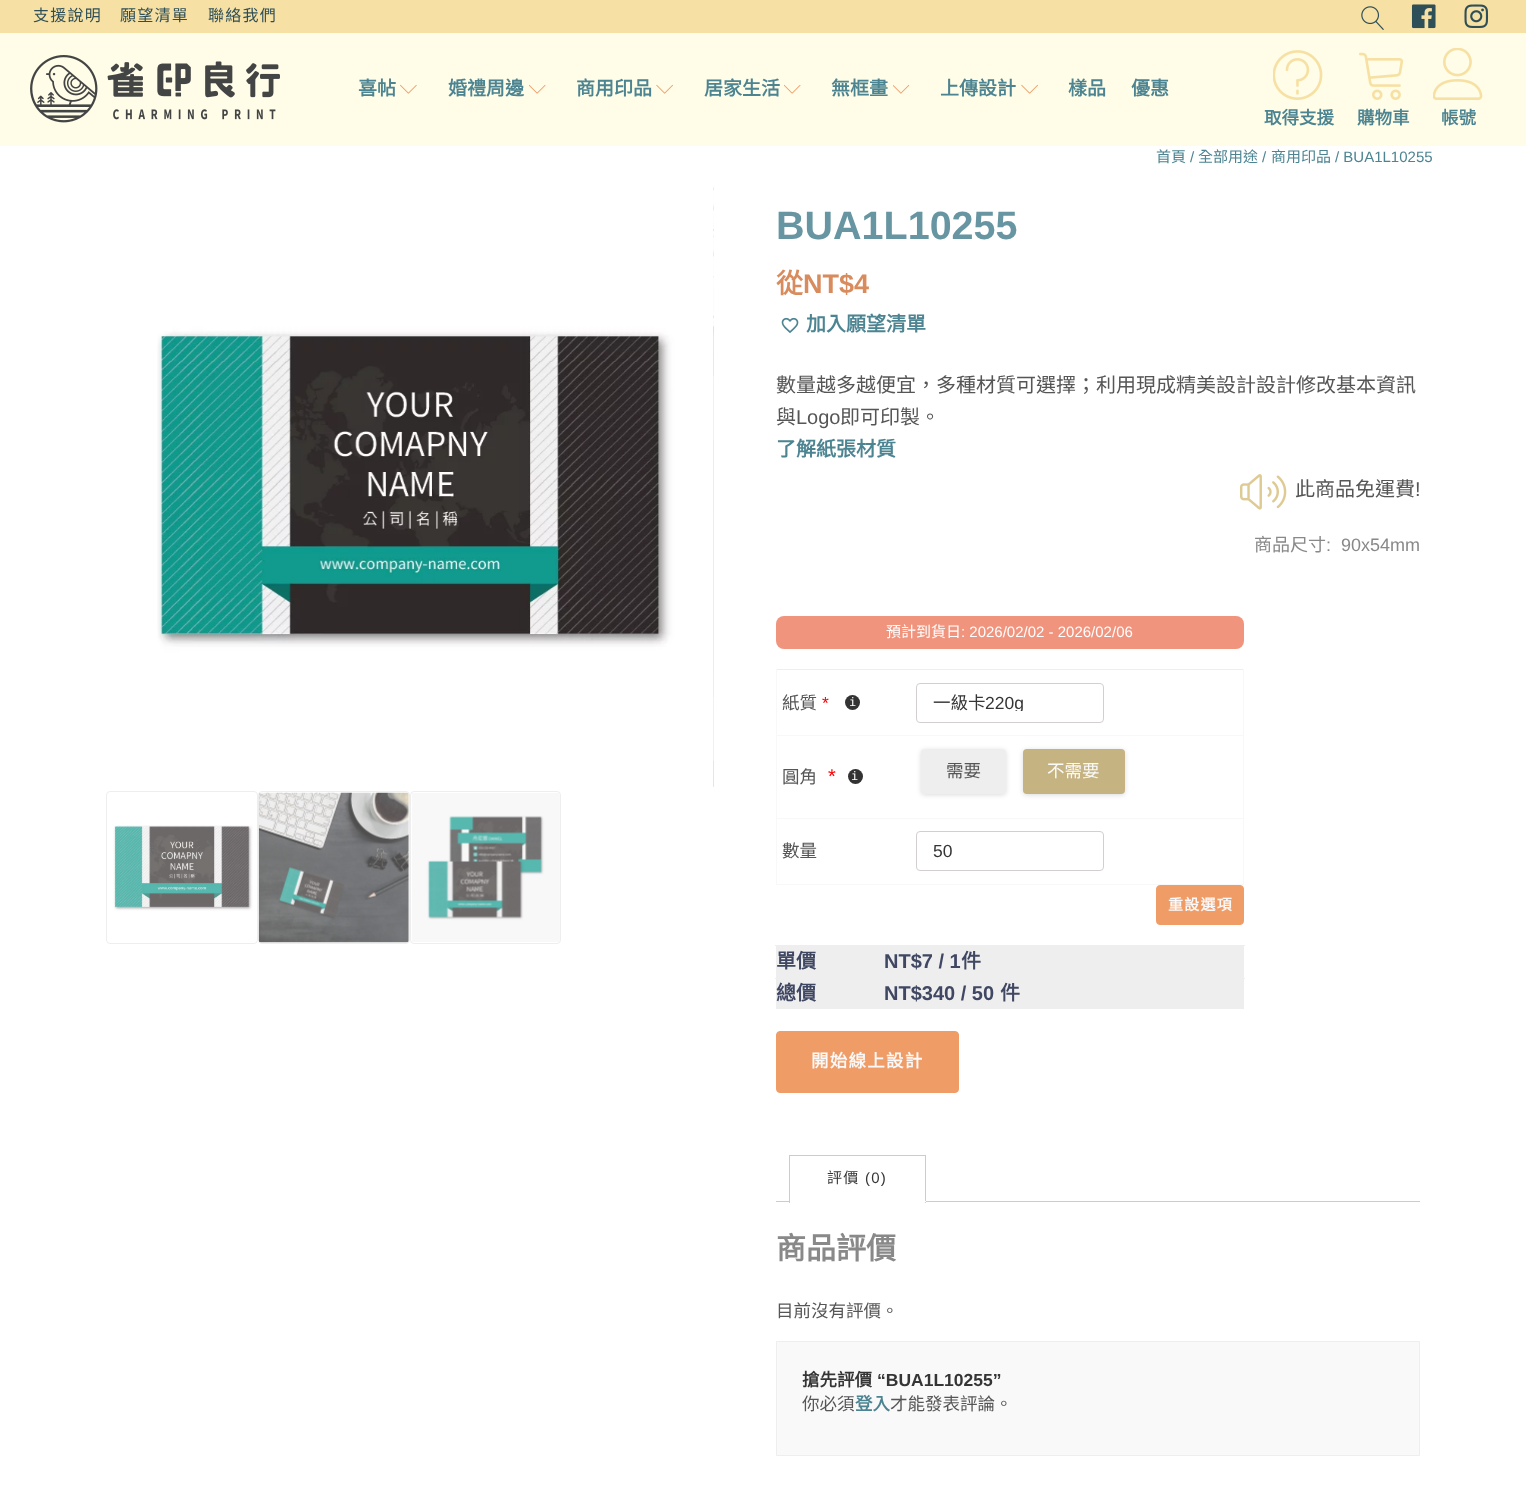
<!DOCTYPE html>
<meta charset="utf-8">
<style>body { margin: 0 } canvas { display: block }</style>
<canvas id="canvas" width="1526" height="1503"></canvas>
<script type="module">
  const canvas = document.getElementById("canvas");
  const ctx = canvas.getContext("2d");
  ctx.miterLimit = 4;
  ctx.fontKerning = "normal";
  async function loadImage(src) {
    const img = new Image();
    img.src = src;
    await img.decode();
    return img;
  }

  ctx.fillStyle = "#ffffff";
  ctx.fillRect(0, 0, 1526, 1503);
  ctx.fillStyle = "#f7e0a3";
  ctx.fillRect(0, 0, 1526, 33);
  ctx.letterSpacing = "1.25px";
  ctx.font = "16px Noto Sans CJK TC";
  ctx.fillStyle = "#2e4f58";
  ctx.fillText("支援說明", 33, 21);
  ctx.fillText("願望清單", 120, 21);
  ctx.fillText("聯絡我們", 208, 21);
  ctx.drawImage(await loadImage("img1.png"), 1361, 6, 23, 24);
  ctx.drawImage(await loadImage("img2.png"), 1411, 4, 25, 25);
  ctx.drawImage(await loadImage("img3.png"), 1464, 4, 25, 24);
  ctx.fillStyle = "#fffde8";
  ctx.fillRect(0, 33, 1526, 113);
  ctx.drawImage(await loadImage("img4.png"), 30, 55, 250, 68);
  ctx.letterSpacing = "0px";
  ctx.font = "bold 19px Noto Sans CJK TC";
  ctx.fillStyle = "#4c8492";
  ctx.fillText("喜帖", 358, 95);
  ctx.drawImage(await loadImage("img5.png"), 400, 84, 17, 10);
  ctx.fillText("婚禮周邊", 448, 95);
  ctx.drawImage(await loadImage("img6.png"), 529, 84, 17, 10);
  ctx.fillText("商用印品", 576, 95);
  ctx.drawImage(await loadImage("img7.png"), 656, 84, 17, 10);
  ctx.fillText("居家生活", 704, 95);
  ctx.drawImage(await loadImage("img6.png"), 784, 84, 17, 10);
  ctx.fillText("無框畫", 831, 95);
  ctx.drawImage(await loadImage("img8.png"), 893, 84, 17, 10);
  ctx.fillText("上傳設計", 940, 95);
  ctx.drawImage(await loadImage("img7.png"), 1021, 84, 17, 10);
  ctx.fillText("樣品", 1068, 95);
  ctx.fillText("優惠", 1131, 95);
  ctx.drawImage(await loadImage("img9.png"), 1273, 50, 50, 50);
  ctx.font = "bold 17.5px Noto Sans CJK TC";
  ctx.fillText("取得支援", 1264, 124);
  ctx.drawImage(await loadImage("img10.png"), 1359, 52, 45, 48);
  ctx.fillText("購物車", 1357, 124);
  ctx.drawImage(await loadImage("img11.png"), 1433, 48, 50, 52);
  ctx.fillText("帳號", 1441, 124);
  ctx.font = "15px Noto Sans CJK TC";
  ctx.fillText("首頁", 1156, 162);
  ctx.font = "15px Liberation Sans";
  ctx.fillText("/", 1190, 162);
  ctx.font = "15px Noto Sans CJK TC";
  ctx.fillText("全部用途", 1198, 162);
  ctx.font = "15px Liberation Sans";
  ctx.fillText("/", 1262, 162);
  ctx.font = "15px Noto Sans CJK TC";
  ctx.fillText("商用印品", 1271, 162);
  ctx.font = "15px Liberation Sans";
  ctx.fillText("/ BUA1L10255", 1335, 162);
  ctx.drawImage(await loadImage("img13.png"), 713, 186, 1, 601);
  ctx.drawImage(await loadImage("img12.png"), 157, 186, 557, 601);
  ctx.beginPath();
  ctx.roundRect(106.5, 791.5, 151, 152, 3.5);
  ctx.strokeStyle = "#eeeeee";
  ctx.stroke();
  ctx.drawImage(await loadImage("img14.png"), 113, 825, 140, 86);
  ctx.beginPath();
  ctx.roundRect(258.5, 791.5, 151, 152, 3.5);
  ctx.stroke();
  ctx.drawImage(await loadImage("img15.png"), 258, 792, 151, 151);
  ctx.beginPath();
  ctx.roundRect(410.5, 791.5, 150, 152, 3.5);
  ctx.stroke();
  ctx.drawImage(await loadImage("img16.png"), 412, 793, 148, 149);
  ctx.font = "bold 39.5px Liberation Sans";
  ctx.fillStyle = "#6796a2";
  ctx.fillText("BUA1L10255", 776, 239);
  ctx.font = "bold 27px Noto Sans CJK TC";
  ctx.fillStyle = "#d88c5d";
  ctx.fillText("從", 776, 293);
  ctx.font = "bold 27px Liberation Sans";
  ctx.fillText("NT$4", 803, 293);
  ctx.drawImage(await loadImage("img17.png"), 781, 317, 18, 16);
  ctx.font = "bold 20px Noto Sans CJK TC";
  ctx.fillStyle = "#4c8492";
  ctx.fillText("加入願望清單", 806, 331);
  ctx.font = "20px Noto Sans CJK TC";
  ctx.fillStyle = "#565656";
  ctx.fillText("數量越多越便宜，多種材質可選擇；利用現成精美設計設計修改基本資訊", 776, 392);
  ctx.fillText("與", 776, 424);
  ctx.font = "20px Liberation Sans";
  ctx.fillText("Logo", 796, 424);
  ctx.font = "20px Noto Sans CJK TC";
  ctx.fillText("即可印製。", 840, 424);
  ctx.font = "bold 20px Noto Sans CJK TC";
  ctx.fillStyle = "#4c8492";
  ctx.fillText("了解紙張材質", 776, 456);
  ctx.drawImage(await loadImage("img18.png"), 1240, 474, 47, 36);
  ctx.font = "20px Noto Sans CJK TC";
  ctx.fillStyle = "#565656";
  ctx.fillText("此商品免運費", 1295, 496);
  ctx.font = "20px Liberation Sans";
  ctx.fillText("!", 1415, 496);
  ctx.font = "18px Noto Sans CJK TC";
  ctx.fillStyle = "#898989";
  ctx.fillText("商品尺寸", 1254, 551);
  ctx.font = "18px Liberation Sans";
  ctx.fillText(":  90x54mm", 1326, 551);
  ctx.fillStyle = "#f0947e";
  ctx.beginPath();
  ctx.roundRect(776, 616, 468, 33, 8);
  ctx.fill();
  ctx.font = "15px Noto Sans CJK TC";
  ctx.fillStyle = "#ffffff";
  ctx.fillText("預計到貨日", 886, 637);
  ctx.font = "15px Liberation Sans";
  ctx.fillText(": 2026/02/02 - 2026/02/06", 961, 637);
  ctx.fillStyle = "#eeeeee";
  ctx.fillRect(776, 669, 468, 1);
  ctx.fillStyle = "#f8f8f8";
  ctx.fillRect(1243, 735, 1, 150);
  ctx.fillRect(1243, 669, 1, 67);
  ctx.fillRect(776, 884, 468, 1);
  ctx.fillRect(776, 818, 1, 67);
  ctx.fillRect(776, 818, 468, 1);
  ctx.fillRect(776, 735, 1, 84);
  ctx.fillRect(776, 735, 468, 1);
  ctx.fillRect(776, 669, 1, 67);
  ctx.font = "17.5px Noto Sans CJK TC";
  ctx.fillStyle = "#565656";
  ctx.fillText("紙質", 782, 709);
  ctx.font = "17.5px Liberation Sans";
  ctx.fillStyle = "#ff0000";
  ctx.fillText("*", 822, 709);
  ctx.fillStyle = "#333333";
  ctx.beginPath();
  ctx.arc(852.5, 702.5, 7.5, 0, Math.PI * 2);
  ctx.fill();
  ctx.font = "12px DejaVu Sans Mono";
  ctx.fillStyle = "#ffffff";
  ctx.fillText("i", 849, 706);
  ctx.beginPath();
  ctx.roundRect(916.5, 683.5, 187, 39, 3.5);
  ctx.strokeStyle = "#d3ced2";
  ctx.stroke();
  ctx.font = "17.5px Noto Sans CJK TC";
  ctx.fillStyle = "#353535";
  ctx.fillText("一級卡", 933, 709);
  ctx.save();
  ctx.beginPath();
  ctx.rect(933, 694, 155, 17);
  ctx.clip();
  ctx.font = "17.5px Liberation Sans";
  ctx.fillText("220g", 985, 709);
  ctx.restore();
  ctx.fillStyle = "#565656";
  ctx.fillText("圓角", 782, 783);
  ctx.font = "20px Liberation Sans";
  ctx.fillStyle = "#ff0000";
  ctx.fillText("*", 828, 783);
  ctx.fillStyle = "#333333";
  ctx.beginPath();
  ctx.arc(855.5, 776.5, 7.5, 0, Math.PI * 2);
  ctx.fill();
  ctx.font = "12px DejaVu Sans Mono";
  ctx.fillStyle = "#ffffff";
  ctx.fillText("i", 851, 780);
  ctx.fillStyle = "rgba(0, 0, 0, 0.14)";
  ctx.filter = "blur(2.5px)";
  ctx.beginPath();
  ctx.roundRect(921, 750, 85, 45, 4);
  ctx.fill();
  ctx.filter = "none";
  ctx.fillStyle = "#eeeeee";
  ctx.beginPath();
  ctx.roundRect(921, 749, 85, 45, 4);
  ctx.fill();
  ctx.font = "17.5px Noto Sans CJK TC";
  ctx.fillStyle = "#565656";
  ctx.fillText("需要", 946, 777);
  ctx.fillStyle = "rgba(0, 0, 0, 0.14)";
  ctx.filter = "blur(2.5px)";
  ctx.beginPath();
  ctx.roundRect(1023, 750, 102, 45, 4);
  ctx.fill();
  ctx.filter = "none";
  ctx.fillStyle = "#c6b382";
  ctx.beginPath();
  ctx.roundRect(1023, 749, 102, 45, 4);
  ctx.fill();
  ctx.fillStyle = "#f9f9f9";
  ctx.fillText("不需要", 1047, 777);
  ctx.fillStyle = "#565656";
  ctx.fillText("數量", 782, 857);
  ctx.beginPath();
  ctx.roundRect(916.5, 831.5, 187, 39, 3.5);
  ctx.stroke();
  ctx.font = "17.5px Liberation Sans";
  ctx.fillStyle = "#353535";
  ctx.fillText("50", 933, 857);
  ctx.fillStyle = "#f09c67";
  ctx.beginPath();
  ctx.roundRect(1156.5, 885.5, 87, 39, 3.5);
  ctx.fill();
  ctx.strokeStyle = "#f09c67";
  ctx.stroke();
  ctx.letterSpacing = "1.25px";
  ctx.font = "bold 15px Noto Sans CJK TC";
  ctx.fillStyle = "#f9f9f9";
  ctx.fillText("重設選項", 1168, 910);
  ctx.fillStyle = "#eeeeee";
  ctx.fillRect(776, 946, 468, 32);
  ctx.fillRect(775, 945, 470, 1);
  ctx.letterSpacing = "0px";
  ctx.font = "bold 20px Noto Sans CJK TC";
  ctx.fillStyle = "#404762";
  ctx.fillText("單價", 776, 968);
  ctx.font = "bold 20px Liberation Sans";
  ctx.fillText("NT$7 / 1", 884, 968);
  ctx.font = "bold 20px Noto Sans CJK TC";
  ctx.fillText("件", 961, 968);
  ctx.fillStyle = "#eeeeee";
  ctx.fillRect(776, 979, 468, 30);
  ctx.fillRect(775, 978, 470, 1);
  ctx.fillStyle = "#404762";
  ctx.fillText("總價", 776, 1000);
  ctx.font = "bold 20px Liberation Sans";
  ctx.fillText("NT$340 / 50", 884, 1000);
  ctx.font = "bold 20px Noto Sans CJK TC";
  ctx.fillText("件", 1000, 1000);
  ctx.fillStyle = "#f09c67";
  ctx.beginPath();
  ctx.roundRect(776.5, 1031.5, 182, 61, 3.5);
  ctx.fill();
  ctx.stroke();
  ctx.letterSpacing = "1.25px";
  ctx.font = "bold 17.5px Noto Sans CJK TC";
  ctx.fillStyle = "#f9f9f9";
  ctx.fillText("開始線上設計", 811, 1067);
  ctx.fillStyle = "#cfc8d8";
  ctx.fillRect(776, 1201, 644, 1);
  ctx.fillStyle = "#ffffff";
  ctx.fillRect(790, 1201, 135, 1);
  ctx.fillStyle = "#cfc8d8";
  ctx.fillRect(789, 1155, 137, 1);
  ctx.fillRect(925, 1155, 1, 48);
  ctx.fillStyle = "#ffffff";
  ctx.fillRect(789, 1201, 137, 1);
  ctx.fillStyle = "#cfc8d8";
  ctx.fillRect(789, 1155, 1, 48);
  ctx.font = "15px Noto Sans CJK TC";
  ctx.fillStyle = "#353535";
  ctx.fillText("評價", 827, 1183);
  ctx.font = "15px Liberation Sans";
  ctx.fillText("(0)", 865, 1183);
  ctx.letterSpacing = "0px";
  ctx.font = "bold 30px Noto Sans CJK TC";
  ctx.fillStyle = "#898989";
  ctx.fillText("商品評價", 776, 1259);
  ctx.font = "17.5px Noto Sans CJK TC";
  ctx.fillStyle = "#565656";
  ctx.fillText("目前沒有評價。", 776, 1317);
  ctx.fillStyle = "#f9f9f9";
  ctx.beginPath();
  ctx.rect(776.5, 1341.5, 643, 114);
  ctx.fill();
  ctx.strokeStyle = "#eeeeee";
  ctx.stroke();
  ctx.font = "bold 17.5px Noto Sans CJK TC";
  ctx.fillStyle = "#353535";
  ctx.fillText("搶先評價", 802, 1386);
  ctx.font = "bold 17.5px Liberation Sans";
  ctx.fillText("“BUA1L10255”", 877, 1386);
  ctx.font = "17.5px Noto Sans CJK TC";
  ctx.fillStyle = "#565656";
  ctx.fillText("你必須", 802, 1410);
  ctx.font = "bold 17.5px Noto Sans CJK TC";
  ctx.fillStyle = "#4c8492";
  ctx.fillText("登入", 855, 1410);
  ctx.font = "17.5px Noto Sans CJK TC";
  ctx.fillStyle = "#565656";
  ctx.fillText("才能發表評論。", 890, 1410);
</script>
